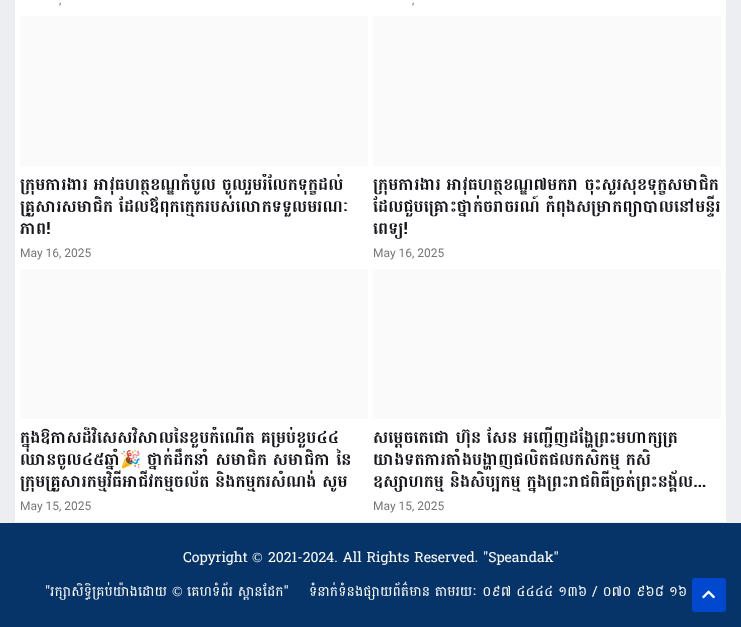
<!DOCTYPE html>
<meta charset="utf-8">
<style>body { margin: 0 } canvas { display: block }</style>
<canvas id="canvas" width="741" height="627"></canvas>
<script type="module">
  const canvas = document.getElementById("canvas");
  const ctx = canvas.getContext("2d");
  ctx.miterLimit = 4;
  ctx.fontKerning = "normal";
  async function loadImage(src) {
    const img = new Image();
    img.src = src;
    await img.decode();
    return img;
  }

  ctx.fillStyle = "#edeef2";
  ctx.fillRect(0, 0, 741, 627);
  ctx.fillStyle = "#ffffff";
  ctx.fillRect(15, 0, 711, 522);
  ctx.font = "12px Roboto";
  ctx.fillStyle = "#76767a";
  ctx.fillText(",", 59, 4);
  ctx.fillText(",", 412, 4);
  ctx.fillStyle = "#fafafa";
  ctx.fillRect(20, 16, 348, 150);
  ctx.save();
  ctx.beginPath();
  ctx.rect(20, 174, 348, 66);
  ctx.clip();
  ctx.font = "bold 17px Battambang";
  ctx.fillStyle = "#15161a";
  ctx.fillText("ក្រុមការងារ អាវុធហត្ថខណ្ឌកំបូល ចូលរួមរំលែកទុក្ខដល់", 20, 190);
  ctx.fillText("គ្រួសារសមាជិក ដែលឪពុកក្មេករបស់លោកទទួលមរណៈ", 20, 212);
  ctx.restore();
  ctx.font = "bold 17px Battambang";
  ctx.fillStyle = "#15161a";
  ctx.fillText("ភាព!", 20, 234);
  ctx.font = "12px Roboto";
  ctx.fillStyle = "#76767a";
  ctx.fillText("May 16, 2025", 20, 257);
  ctx.fillStyle = "#fafafa";
  ctx.fillRect(373, 16, 348, 150);
  ctx.save();
  ctx.beginPath();
  ctx.rect(373, 174, 348, 66);
  ctx.clip();
  ctx.font = "bold 17px Battambang";
  ctx.fillStyle = "#15161a";
  ctx.fillText("ក្រុមការងារ អាវុធហត្ថខណ្ឌ៧មករា ចុះសួរសុខទុក្ខសមាជិក", 373, 190);
  ctx.restore();
  ctx.font = "bold 17px Battambang";
  ctx.fillStyle = "#15161a";
  ctx.fillText("ដែលជួបគ្រោះថ្នាក់ចរាចរណ៍ កំពុងសម្រាកព្យាបាលនៅមន្ទីរ", 373, 212);
  ctx.fillText("ពេទ្យ!", 373, 234);
  ctx.font = "12px Roboto";
  ctx.fillStyle = "#76767a";
  ctx.fillText("May 16, 2025", 373, 257);
  ctx.fillStyle = "#fafafa";
  ctx.fillRect(20, 269, 348, 150);
  ctx.save();
  ctx.beginPath();
  ctx.rect(20, 427, 348, 66);
  ctx.clip();
  ctx.font = "bold 17px Battambang";
  ctx.fillStyle = "#15161a";
  ctx.fillText("ក្នុងឱកាសដ៏វិសេសវិសាលនៃខួបកំណើត គម្រប់ខួប៤៤", 20, 443);
  ctx.restore();
  ctx.font = "bold 17px Battambang";
  ctx.fillStyle = "#15161a";
  ctx.fillText("ឈានចូល៤៥ឆ្នាំ", 20, 465);
  ctx.font = "bold 17px Noto Color Emoji";
  ctx.fillText("🎉", 120, 465);
  ctx.font = "bold 17px Battambang";
  ctx.fillText("ថ្នាក់ដឹកនាំ សមាជិក សមាជិកា នៃ", 147, 465);
  ctx.save();
  ctx.beginPath();
  ctx.rect(20, 427, 348, 66);
  ctx.clip();
  ctx.fillText("ក្រុមគ្រួសារកម្មវិធីអាជីវកម្មចល័ត និងកម្មករសំណង់ សូម", 20, 487);
  ctx.restore();
  ctx.font = "12px Roboto";
  ctx.fillStyle = "#76767a";
  ctx.fillText("May 15, 2025", 20, 510);
  ctx.fillStyle = "#fafafa";
  ctx.fillRect(373, 269, 348, 150);
  ctx.font = "bold 17px Battambang";
  ctx.fillStyle = "#15161a";
  ctx.fillText("សម្តេចតេជោ ហ៊ុន សែន អញ្ជើញដង្ហែព្រះមហាក្សត្រ", 373, 443);
  ctx.fillText("យាងទតការតាំងបង្ហាញផលិតផលកសិកម្ម កសិ", 373, 465);
  ctx.save();
  ctx.beginPath();
  ctx.rect(373, 427, 348, 66);
  ctx.clip();
  ctx.fillText("ឧស្សាហកម្ម និងសិប្បកម្ម ក្នុងព្រះរាជពិធីច្រត់ព្រះនង្គ័ល...", 373, 487);
  ctx.restore();
  ctx.font = "12px Roboto";
  ctx.fillStyle = "#76767a";
  ctx.fillText("May 15, 2025", 373, 510);
  ctx.fillStyle = "#063468";
  ctx.fillRect(0, 523, 741, 104);
  ctx.font = "14px Battambang";
  ctx.fillStyle = "#fcfcfc";
  ctx.fillText("Copyright", 183, 562);
  ctx.font = "14px Liberation Serif";
  ctx.fillText("©", 252, 562);
  ctx.font = "14px Battambang";
  ctx.fillText("2021-2024. All Rights Reserved. \"Speandak\"", 268, 562);
  ctx.fillText("\"រក្សាសិទ្ធិគ្រប់យ៉ាងដោយ", 45, 596);
  ctx.font = "14px Liberation Serif";
  ctx.fillText("©", 172, 596);
  ctx.font = "14px Battambang";
  ctx.fillText("គេហទំព័រ ស្ពានដែក\"", 187, 596);
  ctx.fillText("ទំនាក់ទំនងផ្សាយព័ត៌មាន តាមរយៈ ០៩៧ ៤៤៤៤ ១៣៦ / ០៧០ ៩៦៨ ១៦", 309, 596);
  ctx.fillStyle = "#0049ce";
  ctx.beginPath();
  ctx.roundRect(692, 578, 34, 34, 3);
  ctx.fill();
  ctx.drawImage(await loadImage("img1.png"), 702, 590, 13, 9);
</script>
